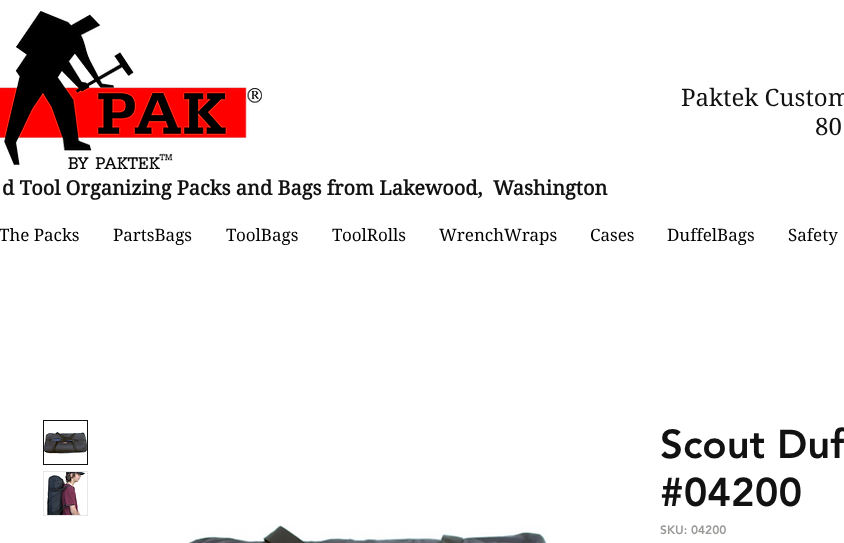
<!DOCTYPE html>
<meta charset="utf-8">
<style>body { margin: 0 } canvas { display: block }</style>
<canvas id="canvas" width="844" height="543"></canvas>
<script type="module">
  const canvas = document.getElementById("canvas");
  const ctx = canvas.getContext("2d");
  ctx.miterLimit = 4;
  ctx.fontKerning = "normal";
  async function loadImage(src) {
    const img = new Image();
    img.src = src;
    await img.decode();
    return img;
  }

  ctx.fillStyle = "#ffffff";
  ctx.fillRect(0, 0, 844, 543);
  ctx.drawImage(await loadImage("img1.png"), 0, 11, 262, 158);
  ctx.font = "24px 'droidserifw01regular'";
  ctx.fillStyle = "#121212";
  ctx.fillText("Paktek Custom", 681, 106);
  ctx.fillText("80", 815, 135);
  ctx.font = "bold 20px 'droidserifw01regular'";
  ctx.fillText("d Tool Organizing Packs and Bags from Lakewood,  Washington", 2, 195);
  ctx.font = "17px 'droidserifw01regular'";
  ctx.fillStyle = "#000000";
  ctx.fillText("The Packs", -1, 241);
  ctx.fillText("PartsBags", 113, 241);
  ctx.fillText("ToolBags", 226, 241);
  ctx.fillText("ToolRolls", 332, 241);
  ctx.fillText("WrenchWraps", 439, 241);
  ctx.fillText("Cases", 590, 241);
  ctx.fillText("DuffelBags", 667, 241);
  ctx.fillText("Safety", 788, 241);
  ctx.strokeStyle = "#121212";
  ctx.strokeRect(43.5, 420.5, 44, 44);
  ctx.drawImage(await loadImage("img2.png"), 44, 432, 43, 22);
  ctx.strokeStyle = "#e8e6e6";
  ctx.strokeRect(43.5, 471.5, 44, 44);
  ctx.drawImage(await loadImage("img3.png"), 47, 472, 38, 43);
  ctx.drawImage(await loadImage("img4.png"), 188, 525, 359, 18);
  ctx.font = "900 40px 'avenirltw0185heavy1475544'";
  ctx.fillStyle = "#121212";
  ctx.fillText("Scout Duf", 660, 458);
  ctx.fillText("#04200", 660, 506);
  ctx.font = "900 12px 'avenirltw0185heavy1475544'";
  ctx.fillStyle = "#999997";
  ctx.fillText("SKU: 04200", 660, 534);
</script>
